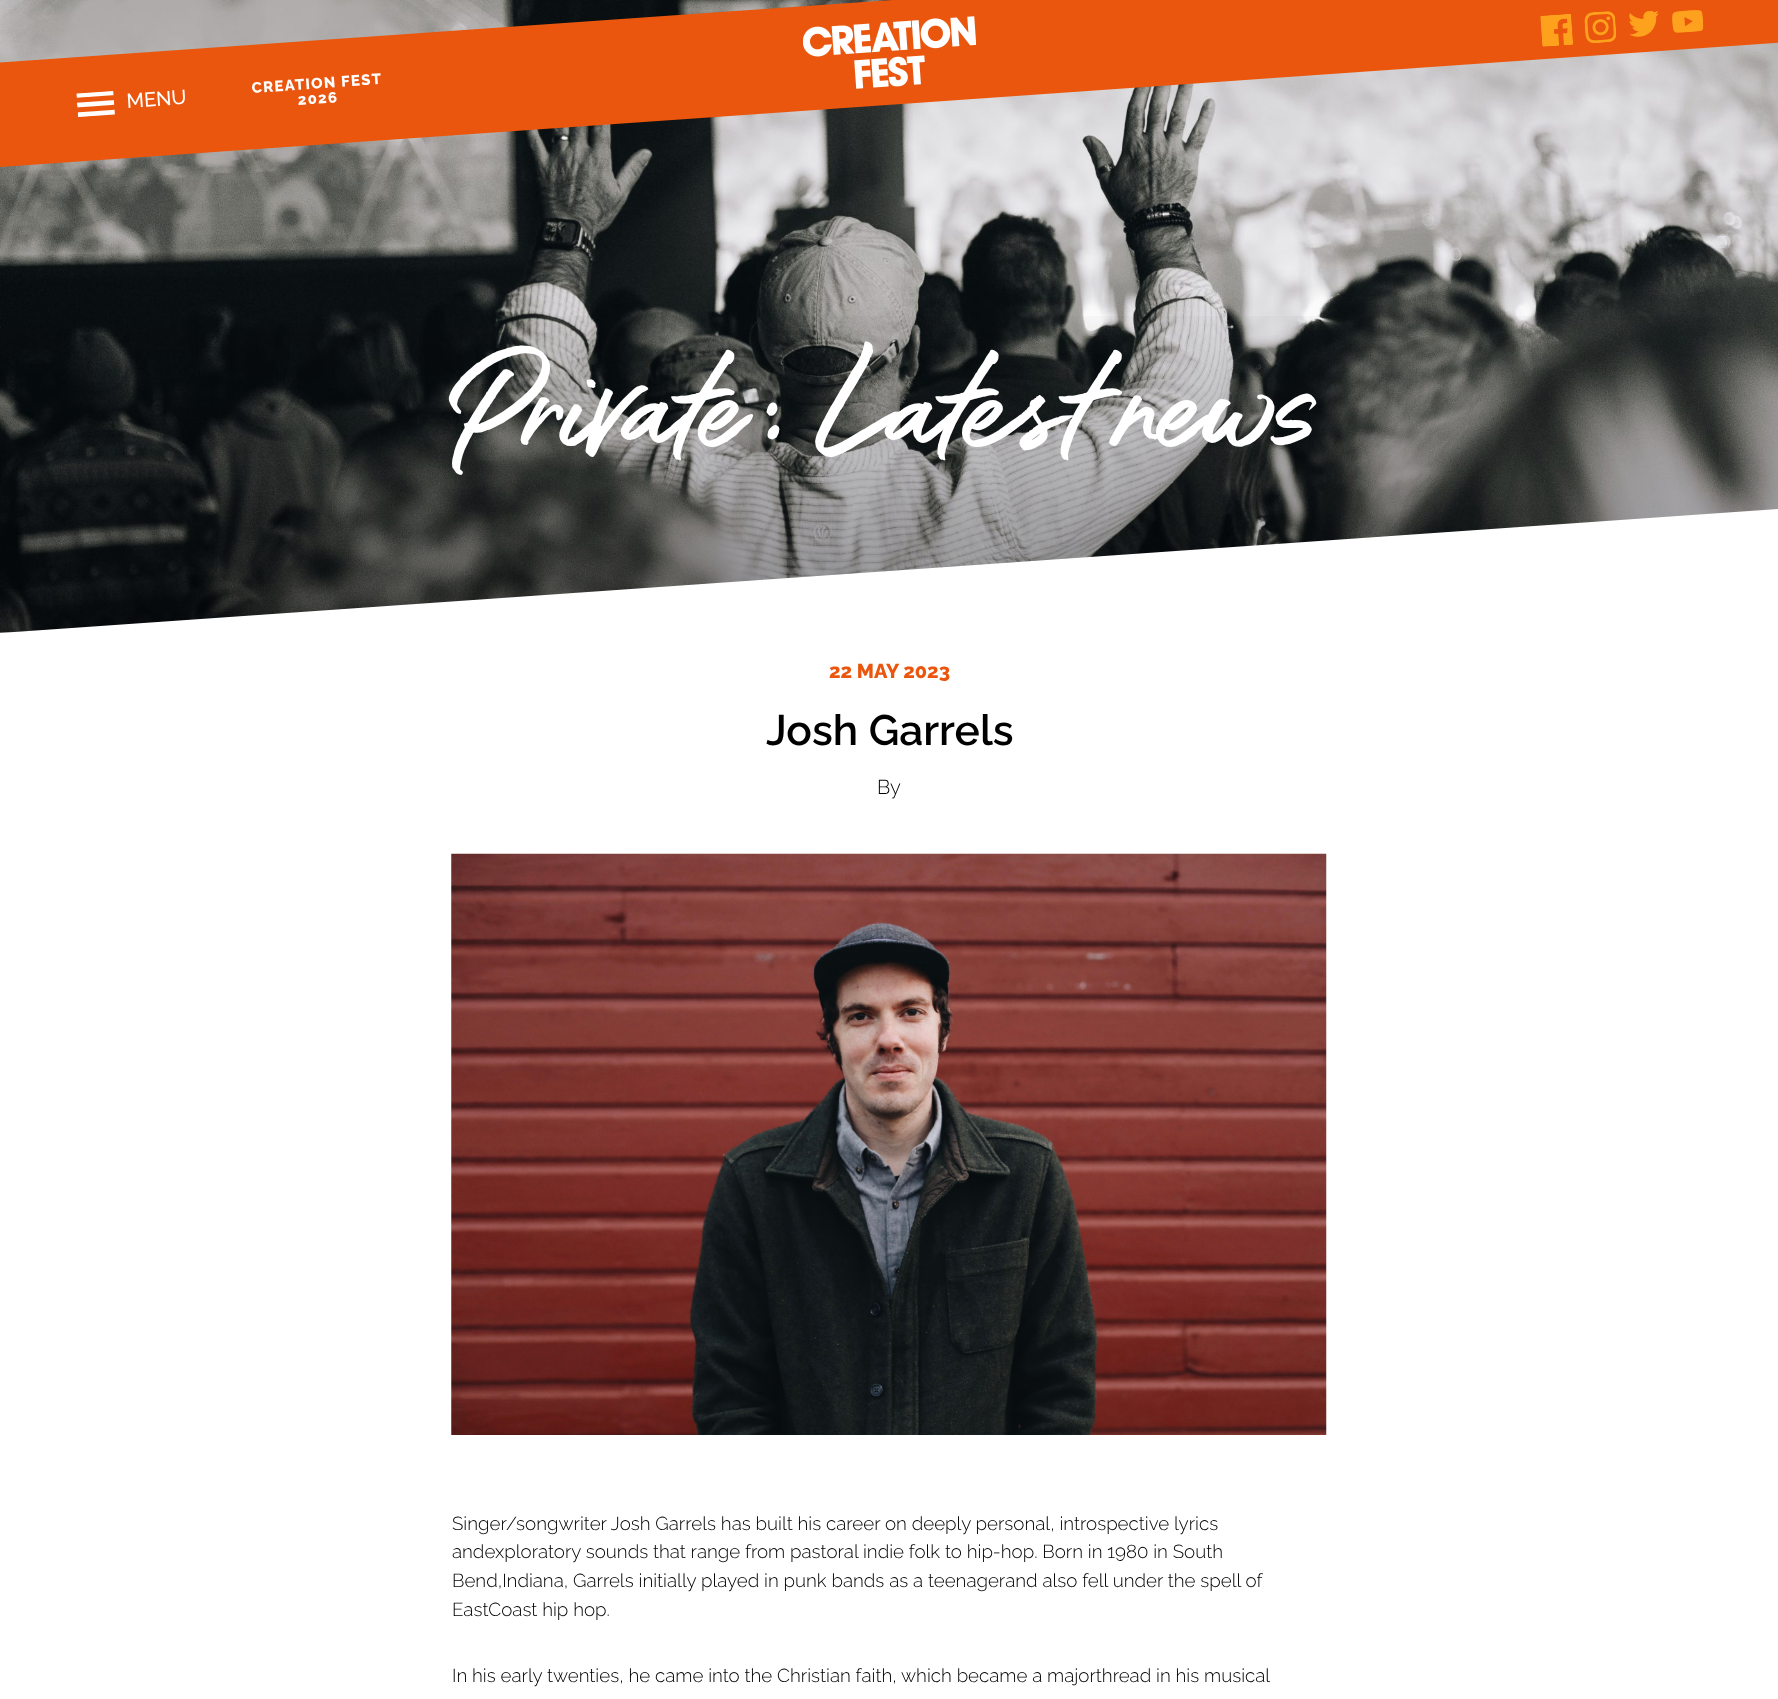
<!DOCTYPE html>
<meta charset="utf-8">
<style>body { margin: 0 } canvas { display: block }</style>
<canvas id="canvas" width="1778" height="1699"></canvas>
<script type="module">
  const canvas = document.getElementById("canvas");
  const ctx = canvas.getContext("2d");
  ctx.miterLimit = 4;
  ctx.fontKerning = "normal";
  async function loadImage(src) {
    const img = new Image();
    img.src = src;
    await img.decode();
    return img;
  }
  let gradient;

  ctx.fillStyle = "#ffffff";
  ctx.fillRect(0, 0, 1778, 1699);
  ctx.drawImage(await loadImage("img7.png"), 0, 0, 1778, 633);
  ctx.fillStyle = "#ea560d";
  ctx.beginPath();
  ctx.moveTo(-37, 65);
  ctx.lineTo(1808, -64);
  ctx.lineTo(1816, 40);
  ctx.lineTo(-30, 169);
  ctx.closePath();
  ctx.fill();
  ctx.drawImage(await loadImage("img1.png"), 76, 91, 39, 26);
  ctx.font = "500 20px Raleway";
  ctx.fillStyle = "#ffffff";
  ctx.save();
  ctx.translate(127, 108);
  ctx.rotate(-4 * Math.PI / 180);
  ctx.fillText("MENU", 0, 0);
  ctx.restore();
  ctx.letterSpacing = "1.25px";
  ctx.font = "800 15px Raleway";
  ctx.save();
  ctx.translate(252, 93);
  ctx.rotate(-4 * Math.PI / 180);
  ctx.fillText("CREATION FEST", 0, 0);
  ctx.restore();
  ctx.save();
  ctx.translate(298, 105);
  ctx.rotate(-4 * Math.PI / 180);
  ctx.fillText("2026", 0, 0);
  ctx.restore();
  ctx.drawImage(await loadImage("img2.png"), 803, 16, 173, 73);
  ctx.drawImage(await loadImage("img3.png"), 1540, 14, 33, 33);
  ctx.drawImage(await loadImage("img4.png"), 1584, 11, 33, 32);
  ctx.drawImage(await loadImage("img5.png"), 1629, 10, 30, 27);
  ctx.drawImage(await loadImage("img6.png"), 1672, 10, 32, 23);
  gradient = ctx.createLinearGradient(889, 0, 889, 633);
  gradient.addColorStop(0, "rgba(0, 0, 0, 0)");
  gradient.addColorStop(0.47, "rgba(0, 0, 0, 0)");
  gradient.addColorStop(1, "rgba(0, 0, 0, 0.39)");
  ctx.fillStyle = gradient;
  ctx.fillRect(0, 316, 1778, 317);
  ctx.letterSpacing = "0px";
  ctx.font = "187.5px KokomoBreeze";
  ctx.fillStyle = "#ffffff";
  ctx.fillText("Private: Latest news", 465, 441);
  ctx.beginPath();
  ctx.moveTo(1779, 509);
  ctx.lineTo(0, 633);
  ctx.lineTo(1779, 633);
  ctx.closePath();
  ctx.fill("evenodd");
  ctx.font = "800 20px Raleway";
  ctx.fillStyle = "#ea560d";
  ctx.fillText("22 MAY 2023", 829, 678);
  ctx.font = "600 42.5px Raleway";
  ctx.fillStyle = "#000000";
  ctx.fillText("Josh Garrels", 766, 745);
  ctx.font = "300 20px Raleway";
  ctx.fillText("By", 877, 794);
  ctx.drawImage(await loadImage("img8.png"), 451, 853, 876, 582);
  ctx.font = "300 18.75px Raleway";
  ctx.fillText("Singer/songwriter Josh Garrels has built his career on deeply personal, introspective lyrics", 452, 1530);
  ctx.fillText("andexploratory sounds that range from pastoral indie folk to hip-hop. Born in 1980 in South", 452, 1558);
  ctx.fillText("Bend,Indiana, Garrels initially played in punk bands as a teenagerand also fell under the spell of", 452, 1587);
  ctx.fillText("EastCoast hip hop.", 452, 1616);
  ctx.fillText("In his early twenties, he came into the Christian faith, which became a majorthread in his musical", 452, 1682);
</script>
